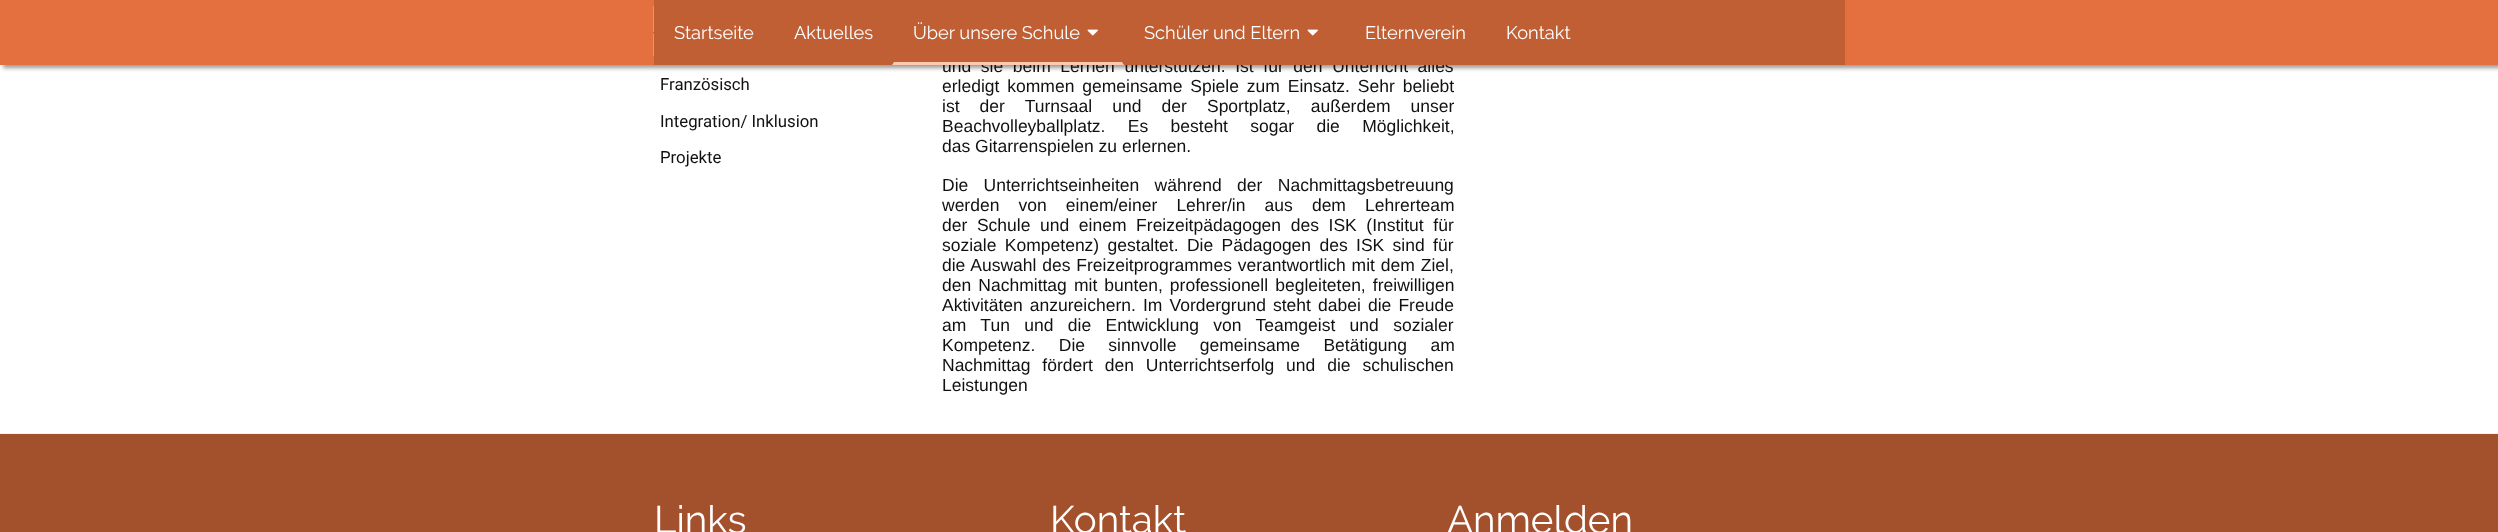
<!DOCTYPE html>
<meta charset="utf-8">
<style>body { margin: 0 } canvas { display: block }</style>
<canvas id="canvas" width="2498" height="532"></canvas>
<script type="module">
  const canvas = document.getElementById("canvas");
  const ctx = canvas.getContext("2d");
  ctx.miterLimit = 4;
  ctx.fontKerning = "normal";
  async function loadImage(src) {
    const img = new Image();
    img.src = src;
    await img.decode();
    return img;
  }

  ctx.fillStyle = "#ffffff";
  ctx.fillRect(0, 0, 2498, 532);
  ctx.fillStyle = "rgba(0, 0, 0, 0.4)";
  ctx.filter = "blur(2px)";
  ctx.beginPath();
  ctx.rect(3, 3, 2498, 65);
  ctx.fill();
  ctx.filter = "none";
  ctx.wordSpacing = "4.75px";
  ctx.font = "17.5px Liberation Sans";
  ctx.fillStyle = "#111111";
  ctx.fillText("und sie beim Lernen unterstützen. Ist für den Unterricht alles", 942, 72);
  ctx.fillStyle = "#e3703e";
  ctx.fillRect(0, 0, 2498, 65);
  ctx.drawImage(await loadImage("img1.png"), 653, 6, 1, 51);
  ctx.fillStyle = "#c05f34";
  ctx.fillRect(654, 0, 1191, 65);
  ctx.wordSpacing = "0px";
  ctx.font = "18.25px Raleway";
  ctx.fillStyle = "#ffffff";
  ctx.fillText("Startseite", 674, 39);
  ctx.fillText("Aktuelles", 794, 39);
  ctx.fillStyle = "#ffc9b1";
  ctx.beginPath();
  ctx.moveTo(1124, 65);
  ctx.lineTo(892, 65);
  ctx.lineTo(894, 62);
  ctx.lineTo(1122, 62);
  ctx.closePath();
  ctx.fill();
  ctx.fillStyle = "#ffffff";
  ctx.fillText("Über unsere Schule", 913, 39);
  ctx.drawImage(await loadImage("img2.png"), 1087, 29, 11, 7);
  ctx.fillText("Schüler und Eltern", 1144, 39);
  ctx.drawImage(await loadImage("img2.png"), 1307, 29, 11, 7);
  ctx.fillText("Elternverein", 1365, 39);
  ctx.fillText("Kontakt", 1506, 39);
  ctx.font = "16.75px Roboto";
  ctx.fillStyle = "#111111";
  ctx.fillText("Französisch", 660, 90);
  ctx.fillText("Integration/ Inklusion", 660, 127);
  ctx.fillText("Projekte", 660, 163);
  ctx.wordSpacing = "3px";
  ctx.font = "17.5px Liberation Sans";
  ctx.fillText("erledigt kommen gemeinsame Spiele zum Einsatz. Sehr beliebt", 942, 92);
  ctx.wordSpacing = "15.25px";
  ctx.fillText("ist der Turnsaal und der Sportplatz, außerdem unser", 942, 112);
  ctx.wordSpacing = "17.5px";
  ctx.fillText("Beachvolleyballplatz. Es besteht sogar die Möglichkeit,", 942, 132);
  ctx.wordSpacing = "0px";
  ctx.fillText("das Gitarrenspielen zu erlernen.", 942, 152);
  ctx.wordSpacing = "10.5px";
  ctx.fillText("Die Unterrichtseinheiten während der Nachmittagsbetreuung", 942, 191);
  ctx.wordSpacing = "14.25px";
  ctx.fillText("werden von einem/einer Lehrer/in aus dem Lehrerteam", 942, 211);
  ctx.wordSpacing = "4.75px";
  ctx.fillText("der Schule und einem Freizeitpädagogen des ISK (Institut für", 942, 231);
  ctx.wordSpacing = "3.5px";
  ctx.fillText("soziale Kompetenz) gestaltet. Die Pädagogen des ISK sind für", 942, 251);
  ctx.wordSpacing = "1px";
  ctx.fillText("die Auswahl des Freizeitprogrammes verantwortlich mit dem Ziel,", 942, 271);
  ctx.wordSpacing = "2.25px";
  ctx.fillText("den Nachmittag mit bunten, professionell begleiteten, freiwilligen", 942, 291);
  ctx.fillText("Aktivitäten anzureichern. Im Vordergrund steht dabei die Freude", 942, 311);
  ctx.wordSpacing = "9.5px";
  ctx.fillText("am Tun und die Entwicklung von Teamgeist und sozialer", 942, 331);
  ctx.wordSpacing = "18.5px";
  ctx.fillText("Kompetenz. Die sinnvolle gemeinsame Betätigung am", 942, 351);
  ctx.wordSpacing = "7px";
  ctx.fillText("Nachmittag fördert den Unterrichtserfolg und die schulischen", 942, 371);
  ctx.wordSpacing = "0px";
  ctx.fillText("Leistungen", 942, 391);
  ctx.fillStyle = "#a3502c";
  ctx.fillRect(0, 434, 2498, 98);
  ctx.fillStyle = "#f3f3f3";
  ctx.fillRect(0, 433, 2498, 1);
  ctx.font = "38.5px Raleway";
  ctx.fillStyle = "#ffffff";
  ctx.fillText("Links", 654, 533);
  ctx.fillText("Kontakt", 1050, 533);
  ctx.fillText("Anmelden", 1447, 533);
</script>
